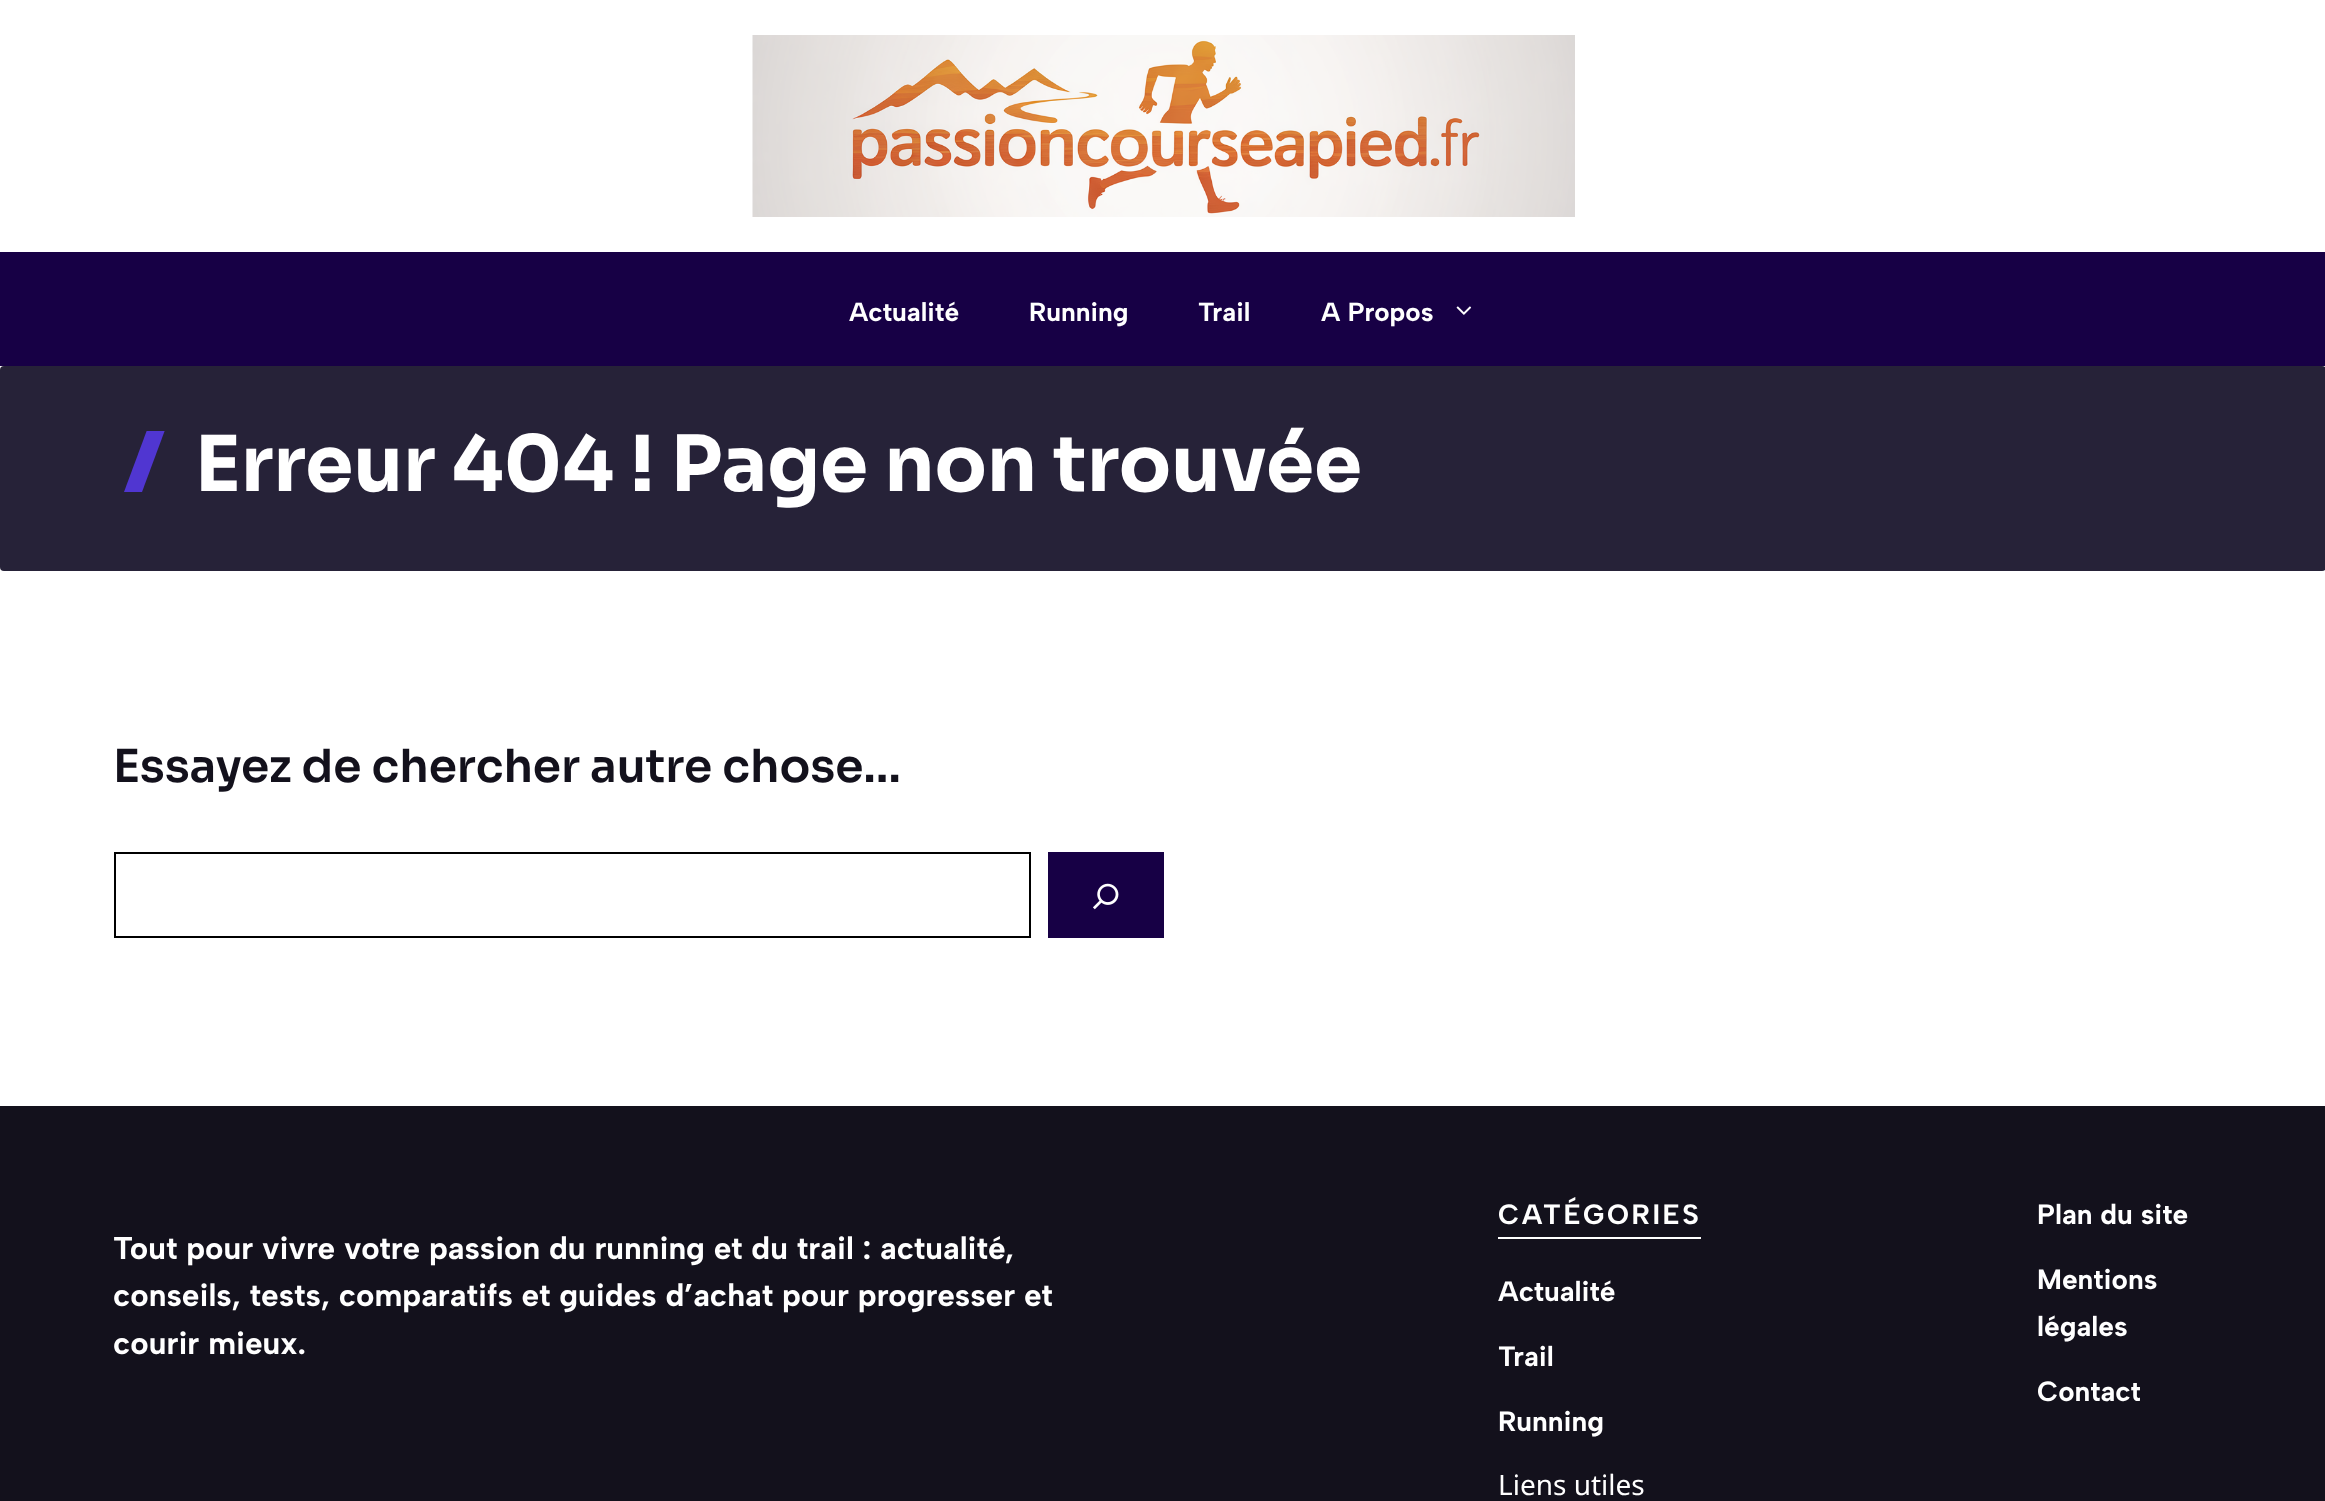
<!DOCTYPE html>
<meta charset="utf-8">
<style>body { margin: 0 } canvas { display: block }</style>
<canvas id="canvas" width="2325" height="1501"></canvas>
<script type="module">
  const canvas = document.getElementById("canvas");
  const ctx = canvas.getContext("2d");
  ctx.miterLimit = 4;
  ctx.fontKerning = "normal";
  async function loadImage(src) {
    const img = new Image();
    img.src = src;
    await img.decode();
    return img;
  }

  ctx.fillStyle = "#ffffff";
  ctx.fillRect(0, 0, 2325, 1501);
  ctx.drawImage(await loadImage("img1.png"), 752, 35, 823, 182);
  ctx.fillStyle = "#170045";
  ctx.fillRect(0, 252, 2325, 114);
  ctx.font = "bold 26.25px Albert Sans";
  ctx.fillStyle = "#ffffff";
  ctx.fillText("Actualité", 849, 321);
  ctx.fillText("Running", 1029, 321);
  ctx.fillText("Trail", 1198, 321);
  ctx.fillText("A Propos", 1321, 321);
  ctx.drawImage(await loadImage("img2.png"), 1456, 306, 16, 9);
  ctx.fillStyle = "#262238";
  ctx.beginPath();
  ctx.roundRect(0, 366, 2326, 205, 4);
  ctx.fill();
  ctx.save();
  ctx.beginPath();
  ctx.rect(114, 431, 61, 63);
  ctx.clip();
  ctx.fillStyle = "#5036d1";
  ctx.beginPath();
  ctx.moveTo(124, 492);
  ctx.lineTo(147, 430);
  ctx.lineTo(165, 430);
  ctx.lineTo(142, 492);
  ctx.closePath();
  ctx.fill();
  ctx.restore();
  ctx.font = "bold 77px Sora";
  ctx.fillStyle = "#ffffff";
  ctx.fillText("Erreur 404 ! Page non trouvée", 195, 491);
  ctx.font = "600 45.5px Sora";
  ctx.fillStyle = "#13111c";
  ctx.fillText("Essayez de chercher autre chose…", 113, 782);
  ctx.strokeStyle = "#000000";
  ctx.lineWidth = 2;
  ctx.strokeRect(115, 853, 915, 84);
  ctx.fillStyle = "#170045";
  ctx.fillRect(1048, 852, 116, 86);
  ctx.drawImage(await loadImage("img3.png"), 1093, 883, 26, 27);
  ctx.fillStyle = "#13111c";
  ctx.fillRect(0, 1106, 2325, 395);
  ctx.font = "bold 31.5px Albert Sans";
  ctx.fillStyle = "#ffffff";
  ctx.fillText("Tout pour vivre votre passion du running et du trail : actualité,", 113, 1259);
  ctx.fillText("conseils, tests, comparatifs et guides d’achat pour progresser et", 113, 1306);
  ctx.fillText("courir mieux.", 113, 1354);
  ctx.fillRect(1498, 1237, 203, 2);
  ctx.letterSpacing = "2.6px";
  ctx.font = "bold 28px Albert Sans";
  ctx.fillText("CATÉGORIES", 1498, 1224);
  ctx.letterSpacing = "0px";
  ctx.fillText("Actualité", 1498, 1301);
  ctx.fillText("Trail", 1498, 1366);
  ctx.fillText("Running", 1498, 1431);
  ctx.font = "28px Noto Sans";
  ctx.fillText("Liens utiles", 1498, 1495);
  ctx.font = "bold 28px Albert Sans";
  ctx.fillText("Plan du site", 2037, 1224);
  ctx.fillText("Mentions", 2037, 1289);
  ctx.fillText("légales", 2037, 1336);
  ctx.fillText("Contact", 2037, 1401);
</script>
